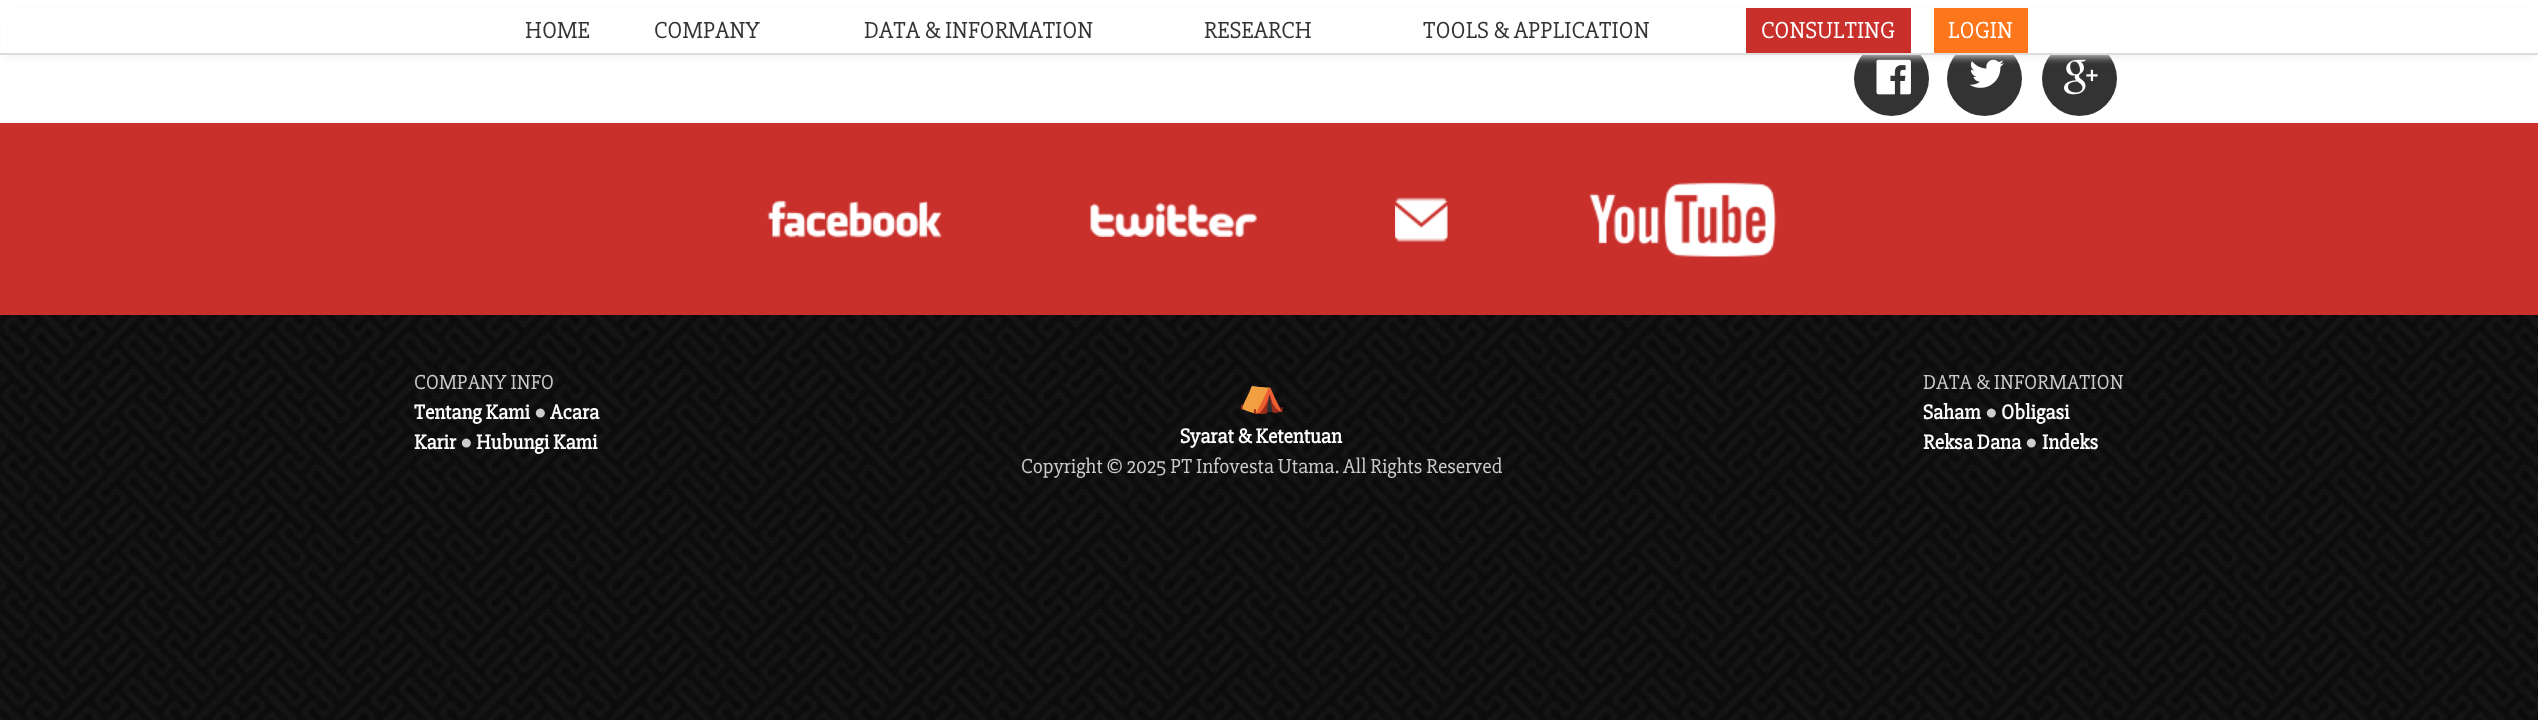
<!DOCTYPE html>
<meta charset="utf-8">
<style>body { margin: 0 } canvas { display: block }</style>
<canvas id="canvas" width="2538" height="720"></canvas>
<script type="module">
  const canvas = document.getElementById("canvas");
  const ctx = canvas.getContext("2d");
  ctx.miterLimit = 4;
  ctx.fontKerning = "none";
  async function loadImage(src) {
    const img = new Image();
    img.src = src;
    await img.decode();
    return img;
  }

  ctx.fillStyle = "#ffffff";
  ctx.fillRect(0, 0, 2538, 720);
  ctx.fillStyle = "#333333";
  ctx.beginPath();
  ctx.arc(1891.5, 78.5, 37.5, 0, Math.PI * 2);
  ctx.fill();
  ctx.drawImage(await loadImage("img1.png"), 1876, 59, 35, 36);
  ctx.beginPath();
  ctx.arc(1984.5, 78.5, 37.5, 0, Math.PI * 2);
  ctx.fill();
  ctx.drawImage(await loadImage("img2.png"), 1969, 59, 35, 29);
  ctx.beginPath();
  ctx.arc(2079.5, 78.5, 37.5, 0, Math.PI * 2);
  ctx.fill();
  ctx.drawImage(await loadImage("img3.png"), 2064, 59, 34, 36);
  ctx.fillStyle = "#ececec";
  ctx.filter = "blur(4px)";
  ctx.beginPath();
  ctx.rect(5, 11, 2529, 45);
  ctx.fill();
  ctx.filter = "none";
  ctx.fillStyle = "#ffffff";
  ctx.fillRect(1, 7, 2537, 46);
  ctx.fillStyle = "#dddddd";
  ctx.fillRect(0, 53, 2538, 2);
  ctx.font = "24px 'Slabo 27px'";
  ctx.fillStyle = "#333333";
  ctx.fillText("HOME", 525, 38);
  ctx.fillText("COMPANY", 654, 38);
  ctx.fillText("DATA & INFORMATION", 864, 38);
  ctx.fillText("RESEARCH", 1204, 38);
  ctx.fillText("TOOLS & APPLICATION", 1423, 38);
  ctx.fillStyle = "#c9302c";
  ctx.fillRect(1746, 8, 165, 45);
  ctx.fillStyle = "#ffffff";
  ctx.fillText("CONSULTING", 1761, 38);
  ctx.fillStyle = "#fe761b";
  ctx.fillRect(1934, 8, 94, 45);
  ctx.fillStyle = "#ffffff";
  ctx.fillText("LOGIN", 1948, 38);
  ctx.fillStyle = "#c9302c";
  ctx.fillRect(0, 123, 2538, 192);
  ctx.drawImage(await loadImage("img4.png"), 767, 200, 176, 38);
  ctx.drawImage(await loadImage("img5.png"), 1090, 202, 167, 35);
  ctx.drawImage(await loadImage("img6.png"), 1395, 197, 53, 45);
  ctx.drawImage(await loadImage("img7.png"), 1589, 182, 188, 75);
  ctx.drawImage(await loadImage("img8.png"), 0, 315, 2538, 405);
  ctx.font = "21px 'Slabo 27px'";
  ctx.fillStyle = "#cccccc";
  ctx.fillText("COMPANY INFO", 414, 389);
  ctx.font = "bold 21px 'Slabo 27px'";
  ctx.fillStyle = "#ffffff";
  ctx.fillText("Tentang Kami", 414, 419);
  ctx.font = "21px Liberation Serif";
  ctx.fillStyle = "#cccccc";
  ctx.fillText("●", 534, 419);
  ctx.font = "bold 21px 'Slabo 27px'";
  ctx.fillStyle = "#ffffff";
  ctx.fillText("Acara", 550, 419);
  ctx.fillText("Karir", 414, 449);
  ctx.font = "21px Liberation Serif";
  ctx.fillStyle = "#cccccc";
  ctx.fillText("●", 460, 449);
  ctx.font = "bold 21px 'Slabo 27px'";
  ctx.fillStyle = "#ffffff";
  ctx.fillText("Hubungi Kami", 476, 449);
  ctx.font = "bold 38px Noto Color Emoji";
  ctx.fillStyle = "#c9302c";
  ctx.fillText("⛺", 1238, 406);
  ctx.font = "21px 'Slabo 27px'";
  ctx.fillStyle = "#cccccc";
  ctx.fillText("DATA & INFORMATION", 1923, 389);
  ctx.font = "bold 21px 'Slabo 27px'";
  ctx.fillStyle = "#ffffff";
  ctx.fillText("Saham", 1923, 419);
  ctx.font = "21px Liberation Serif";
  ctx.fillStyle = "#cccccc";
  ctx.fillText("●", 1985, 419);
  ctx.font = "bold 21px 'Slabo 27px'";
  ctx.fillStyle = "#ffffff";
  ctx.fillText("Obligasi", 2001, 419);
  ctx.fillText("Reksa Dana", 1923, 449);
  ctx.font = "21px Liberation Serif";
  ctx.fillStyle = "#cccccc";
  ctx.fillText("●", 2025, 449);
  ctx.font = "bold 21px 'Slabo 27px'";
  ctx.fillStyle = "#ffffff";
  ctx.fillText("Indeks", 2042, 449);
  ctx.fillText("Syarat & Ketentuan", 1180, 443);
  ctx.font = "21px 'Slabo 27px'";
  ctx.fillStyle = "#cccccc";
  ctx.fillText("Copyright © 2025 PT Infovesta Utama. All Rights Reserved", 1021, 473);
</script>
